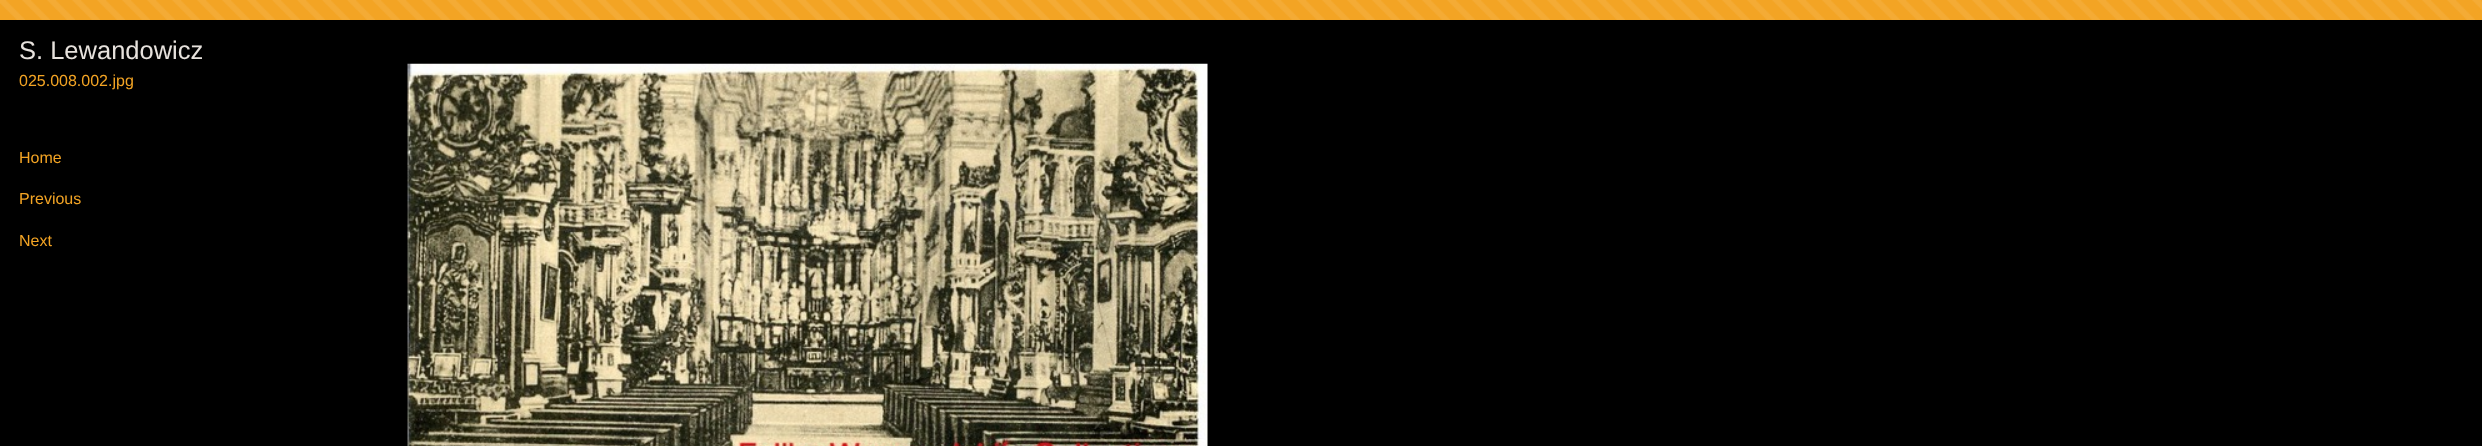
<!DOCTYPE html>
<meta charset="utf-8">
<style>body { margin: 0 } canvas { display: block }</style>
<canvas id="canvas" width="2482" height="446"></canvas>
<script type="module">
  const canvas = document.getElementById("canvas");
  const ctx = canvas.getContext("2d");
  ctx.miterLimit = 4;
  ctx.fontKerning = "normal";
  async function loadImage(src) {
    const img = new Image();
    img.src = src;
    await img.decode();
    return img;
  }

  ctx.fillStyle = "#000000";
  ctx.fillRect(0, 0, 2482, 446);
  ctx.fillStyle = "#f3a424";
  ctx.fillRect(0, 0, 2482, 20);
  ctx.drawImage(await loadImage("img1.png"), 0, 0, 2482, 20);
  ctx.font = "25.5px Liberation Sans";
  ctx.fillStyle = "#e7e2dd";
  ctx.fillText("S. Lewandowicz", 19, 59);
  ctx.font = "16px Liberation Sans";
  ctx.fillStyle = "#f3a424";
  ctx.fillText("025.008.002.jpg", 19, 86);
  ctx.fillText("Home", 19, 163);
  ctx.fillText("Previous", 19, 204);
  ctx.fillText("Next", 19, 246);
  ctx.drawImage(await loadImage("img2.png"), 407, 63, 801, 383);
</script>
